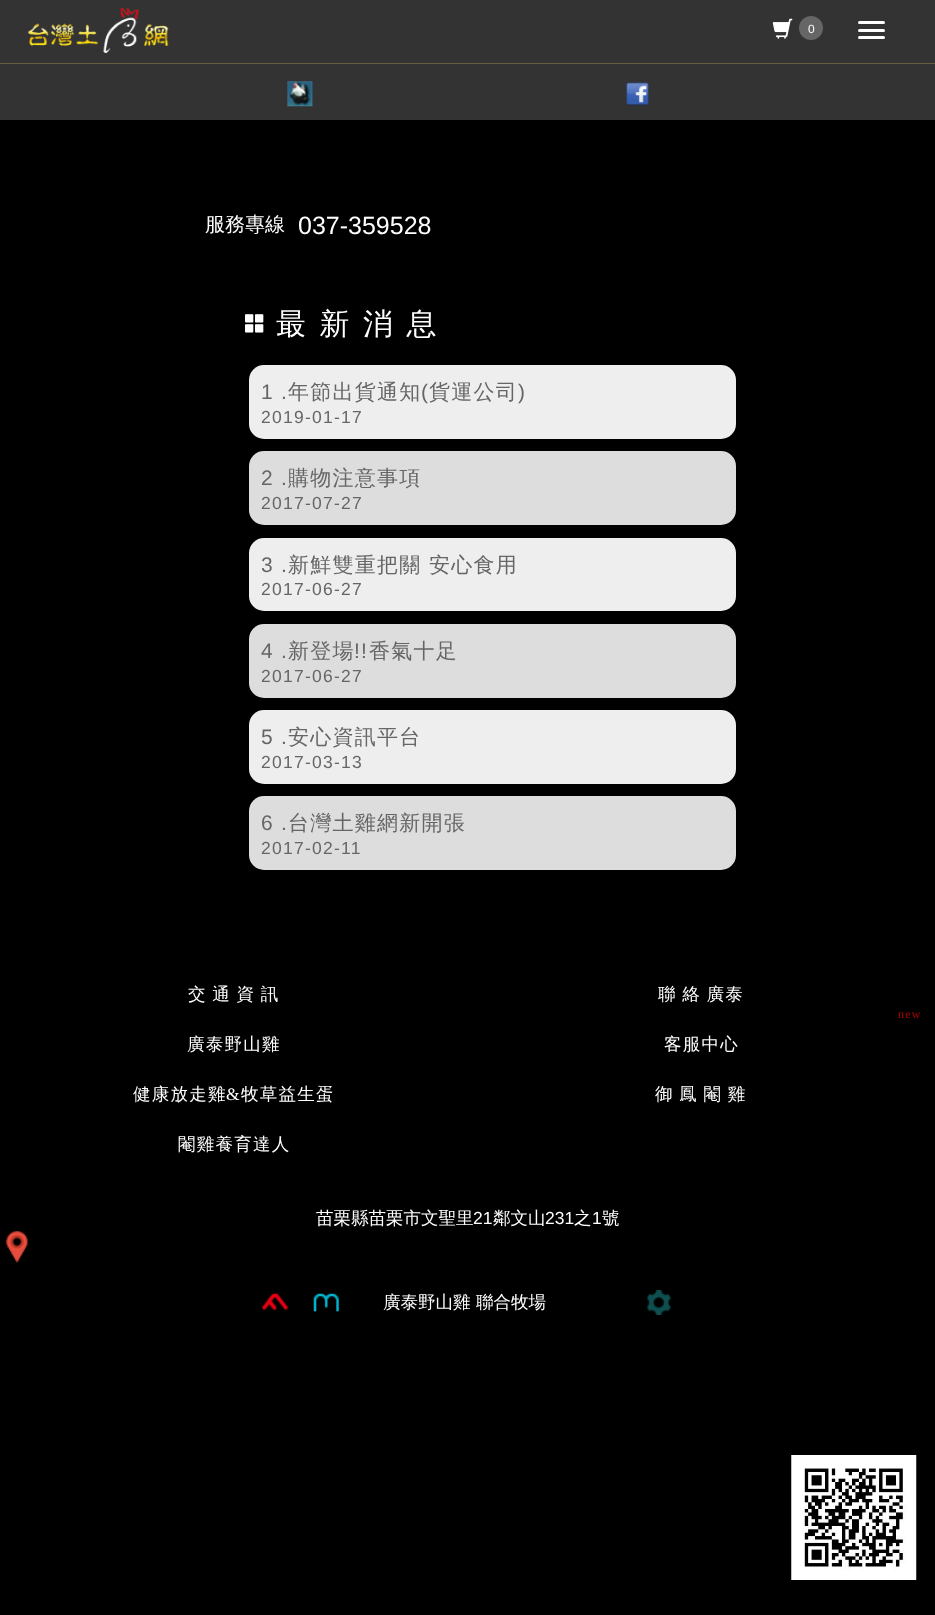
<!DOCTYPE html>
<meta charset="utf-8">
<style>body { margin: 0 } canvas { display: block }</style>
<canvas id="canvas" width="935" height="1615"></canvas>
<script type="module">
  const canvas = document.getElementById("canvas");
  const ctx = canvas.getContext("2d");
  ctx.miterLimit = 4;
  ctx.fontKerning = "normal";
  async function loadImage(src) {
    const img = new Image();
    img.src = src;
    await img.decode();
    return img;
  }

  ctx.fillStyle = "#000000";
  ctx.fillRect(0, 0, 935, 1615);
  ctx.fillStyle = "#333333";
  ctx.fillRect(0, 0, 935, 120);
  ctx.fillStyle = "#675e43";
  ctx.fillRect(0, 63, 935, 1);
  ctx.drawImage(await loadImage("img1.png"), 27, 8, 142, 45);
  ctx.drawImage(await loadImage("img2.png"), 772, 18, 21, 21);
  ctx.fillStyle = "#666666";
  ctx.beginPath();
  ctx.arc(811, 28, 12, 0, Math.PI * 2);
  ctx.fill();
  ctx.letterSpacing = "-1px";
  ctx.font = "12px Liberation Sans";
  ctx.fillStyle = "#ffffff";
  ctx.fillText("0", 808, 33);
  ctx.beginPath();
  ctx.roundRect(858, 21, 27, 3, 1.5);
  ctx.fill();
  ctx.beginPath();
  ctx.roundRect(858, 29, 27, 3, 1.5);
  ctx.fill();
  ctx.beginPath();
  ctx.roundRect(858, 36, 27, 3, 1.5);
  ctx.fill();
  ctx.drawImage(await loadImage("img3.png"), 287, 81, 27, 26);
  ctx.drawImage(await loadImage("img4.png"), 626, 82, 23, 24);
  ctx.letterSpacing = "0px";
  ctx.font = "500 20px WenQuanYi Zen Hei";
  ctx.fillText("服務專線", 205, 231);
  ctx.font = "25px Liberation Sans";
  ctx.fillText("037-359528", 298, 234);
  ctx.drawImage(await loadImage("img5.png"), 245, 314, 19, 19);
  ctx.letterSpacing = "2.5px";
  ctx.wordSpacing = "-0.5px";
  ctx.font = "500 30px WenQuanYi Zen Hei";
  ctx.fillText("最 新 消 息", 276, 334);
  ctx.fillStyle = "#eeeeee";
  ctx.beginPath();
  ctx.roundRect(249, 365, 487, 74, 15);
  ctx.fill();
  ctx.letterSpacing = "1.25px";
  ctx.wordSpacing = "0px";
  ctx.font = "21px Liberation Sans";
  ctx.fillStyle = "#666666";
  ctx.fillText("1 .", 261, 399);
  ctx.font = "500 21px WenQuanYi Zen Hei";
  ctx.fillText("年節出貨通知", 288, 399);
  ctx.font = "21px Liberation Sans";
  ctx.fillText("(", 421, 399);
  ctx.font = "500 21px WenQuanYi Zen Hei";
  ctx.fillText("貨運公司", 429, 399);
  ctx.font = "21px Liberation Sans";
  ctx.fillText(")", 518, 399);
  ctx.font = "17.5px Liberation Sans";
  ctx.fillText("2019-01-17", 261, 423);
  ctx.fillStyle = "#dddddd";
  ctx.beginPath();
  ctx.roundRect(249, 451, 487, 74, 15);
  ctx.fill();
  ctx.font = "21px Liberation Sans";
  ctx.fillStyle = "#666666";
  ctx.fillText("2 .", 261, 485);
  ctx.font = "500 21px WenQuanYi Zen Hei";
  ctx.fillText("購物注意事項", 288, 485);
  ctx.font = "17.5px Liberation Sans";
  ctx.fillText("2017-07-27", 261, 509);
  ctx.fillStyle = "#eeeeee";
  ctx.beginPath();
  ctx.roundRect(249, 538, 487, 73, 15);
  ctx.fill();
  ctx.font = "21px Liberation Sans";
  ctx.fillStyle = "#666666";
  ctx.fillText("3 .", 261, 572);
  ctx.font = "500 21px WenQuanYi Zen Hei";
  ctx.fillText("新鮮雙重把關 安心食用", 288, 572);
  ctx.font = "17.5px Liberation Sans";
  ctx.fillText("2017-06-27", 261, 595);
  ctx.fillStyle = "#dddddd";
  ctx.beginPath();
  ctx.roundRect(249, 624, 487, 74, 15);
  ctx.fill();
  ctx.font = "21px Liberation Sans";
  ctx.fillStyle = "#666666";
  ctx.fillText("4 .", 261, 658);
  ctx.font = "500 21px WenQuanYi Zen Hei";
  ctx.fillText("新登場", 288, 658);
  ctx.font = "21px Liberation Sans";
  ctx.fillText("!!", 354, 658);
  ctx.font = "500 21px WenQuanYi Zen Hei";
  ctx.fillText("香氣十足", 369, 658);
  ctx.font = "17.5px Liberation Sans";
  ctx.fillText("2017-06-27", 261, 682);
  ctx.fillStyle = "#eeeeee";
  ctx.beginPath();
  ctx.roundRect(249, 710, 487, 74, 15);
  ctx.fill();
  ctx.font = "21px Liberation Sans";
  ctx.fillStyle = "#666666";
  ctx.fillText("5 .", 261, 744);
  ctx.font = "500 21px WenQuanYi Zen Hei";
  ctx.fillText("安心資訊平台", 288, 744);
  ctx.font = "17.5px Liberation Sans";
  ctx.fillText("2017-03-13", 261, 768);
  ctx.fillStyle = "#dddddd";
  ctx.beginPath();
  ctx.roundRect(249, 796, 487, 74, 15);
  ctx.fill();
  ctx.font = "21px Liberation Sans";
  ctx.fillStyle = "#666666";
  ctx.fillText("6 .", 261, 830);
  ctx.font = "500 21px WenQuanYi Zen Hei";
  ctx.fillText("台灣土雞網新開張", 288, 830);
  ctx.font = "17.5px Liberation Sans";
  ctx.fillText("2017-02-11", 261, 854);
  ctx.wordSpacing = "-1px";
  ctx.font = "500 17.5px WenQuanYi Zen Hei";
  ctx.fillStyle = "#ffffff";
  ctx.fillText("交 通 資 訊", 188, 1000);
  ctx.fillText("聯 絡 廣泰", 658, 1000);
  ctx.wordSpacing = "0px";
  ctx.fillText("廣泰野山雞", 187, 1050);
  ctx.font = "12px Liberation Serif";
  ctx.fillStyle = "#b30000";
  ctx.fillText("new", 898, 1018);
  ctx.font = "500 17.5px WenQuanYi Zen Hei";
  ctx.fillStyle = "#ffffff";
  ctx.fillText("客服中心", 664, 1050);
  ctx.fillText("健康放走雞", 133, 1100);
  ctx.font = "17.5px Liberation Serif";
  ctx.fillText("&", 226, 1100);
  ctx.font = "500 17.5px WenQuanYi Zen Hei";
  ctx.fillText("牧草益生蛋", 241, 1100);
  ctx.wordSpacing = "-1px";
  ctx.fillText("御 鳳 閹 雞", 655, 1100);
  ctx.wordSpacing = "0px";
  ctx.fillText("閹雞養育達人", 178, 1150);
  ctx.letterSpacing = "0px";
  ctx.fillText("苗栗縣苗栗市文聖里", 316, 1224);
  ctx.font = "17.5px Liberation Sans";
  ctx.fillText("21", 473, 1224);
  ctx.font = "500 17.5px WenQuanYi Zen Hei";
  ctx.fillText("鄰文山", 493, 1224);
  ctx.font = "17.5px Liberation Sans";
  ctx.fillText("231", 545, 1224);
  ctx.font = "500 17.5px WenQuanYi Zen Hei";
  ctx.fillText("之", 574, 1224);
  ctx.font = "17.5px Liberation Sans";
  ctx.fillText("1", 592, 1224);
  ctx.font = "500 17.5px WenQuanYi Zen Hei";
  ctx.fillText("號", 602, 1224);
  ctx.drawImage(await loadImage("img6.png"), 6, 1231, 22, 32);
  ctx.drawImage(await loadImage("img7.png"), 791, 1455, 126, 125);
  ctx.drawImage(await loadImage("img8.png"), 262, 1293, 26, 18);
  ctx.drawImage(await loadImage("img9.png"), 313, 1293, 26, 19);
  ctx.fillText("廣泰野山雞", 383, 1308);
  ctx.fillText("聯合牧場", 476, 1308);
  ctx.drawImage(await loadImage("img10.png"), 647, 1290, 25, 25);
</script>
